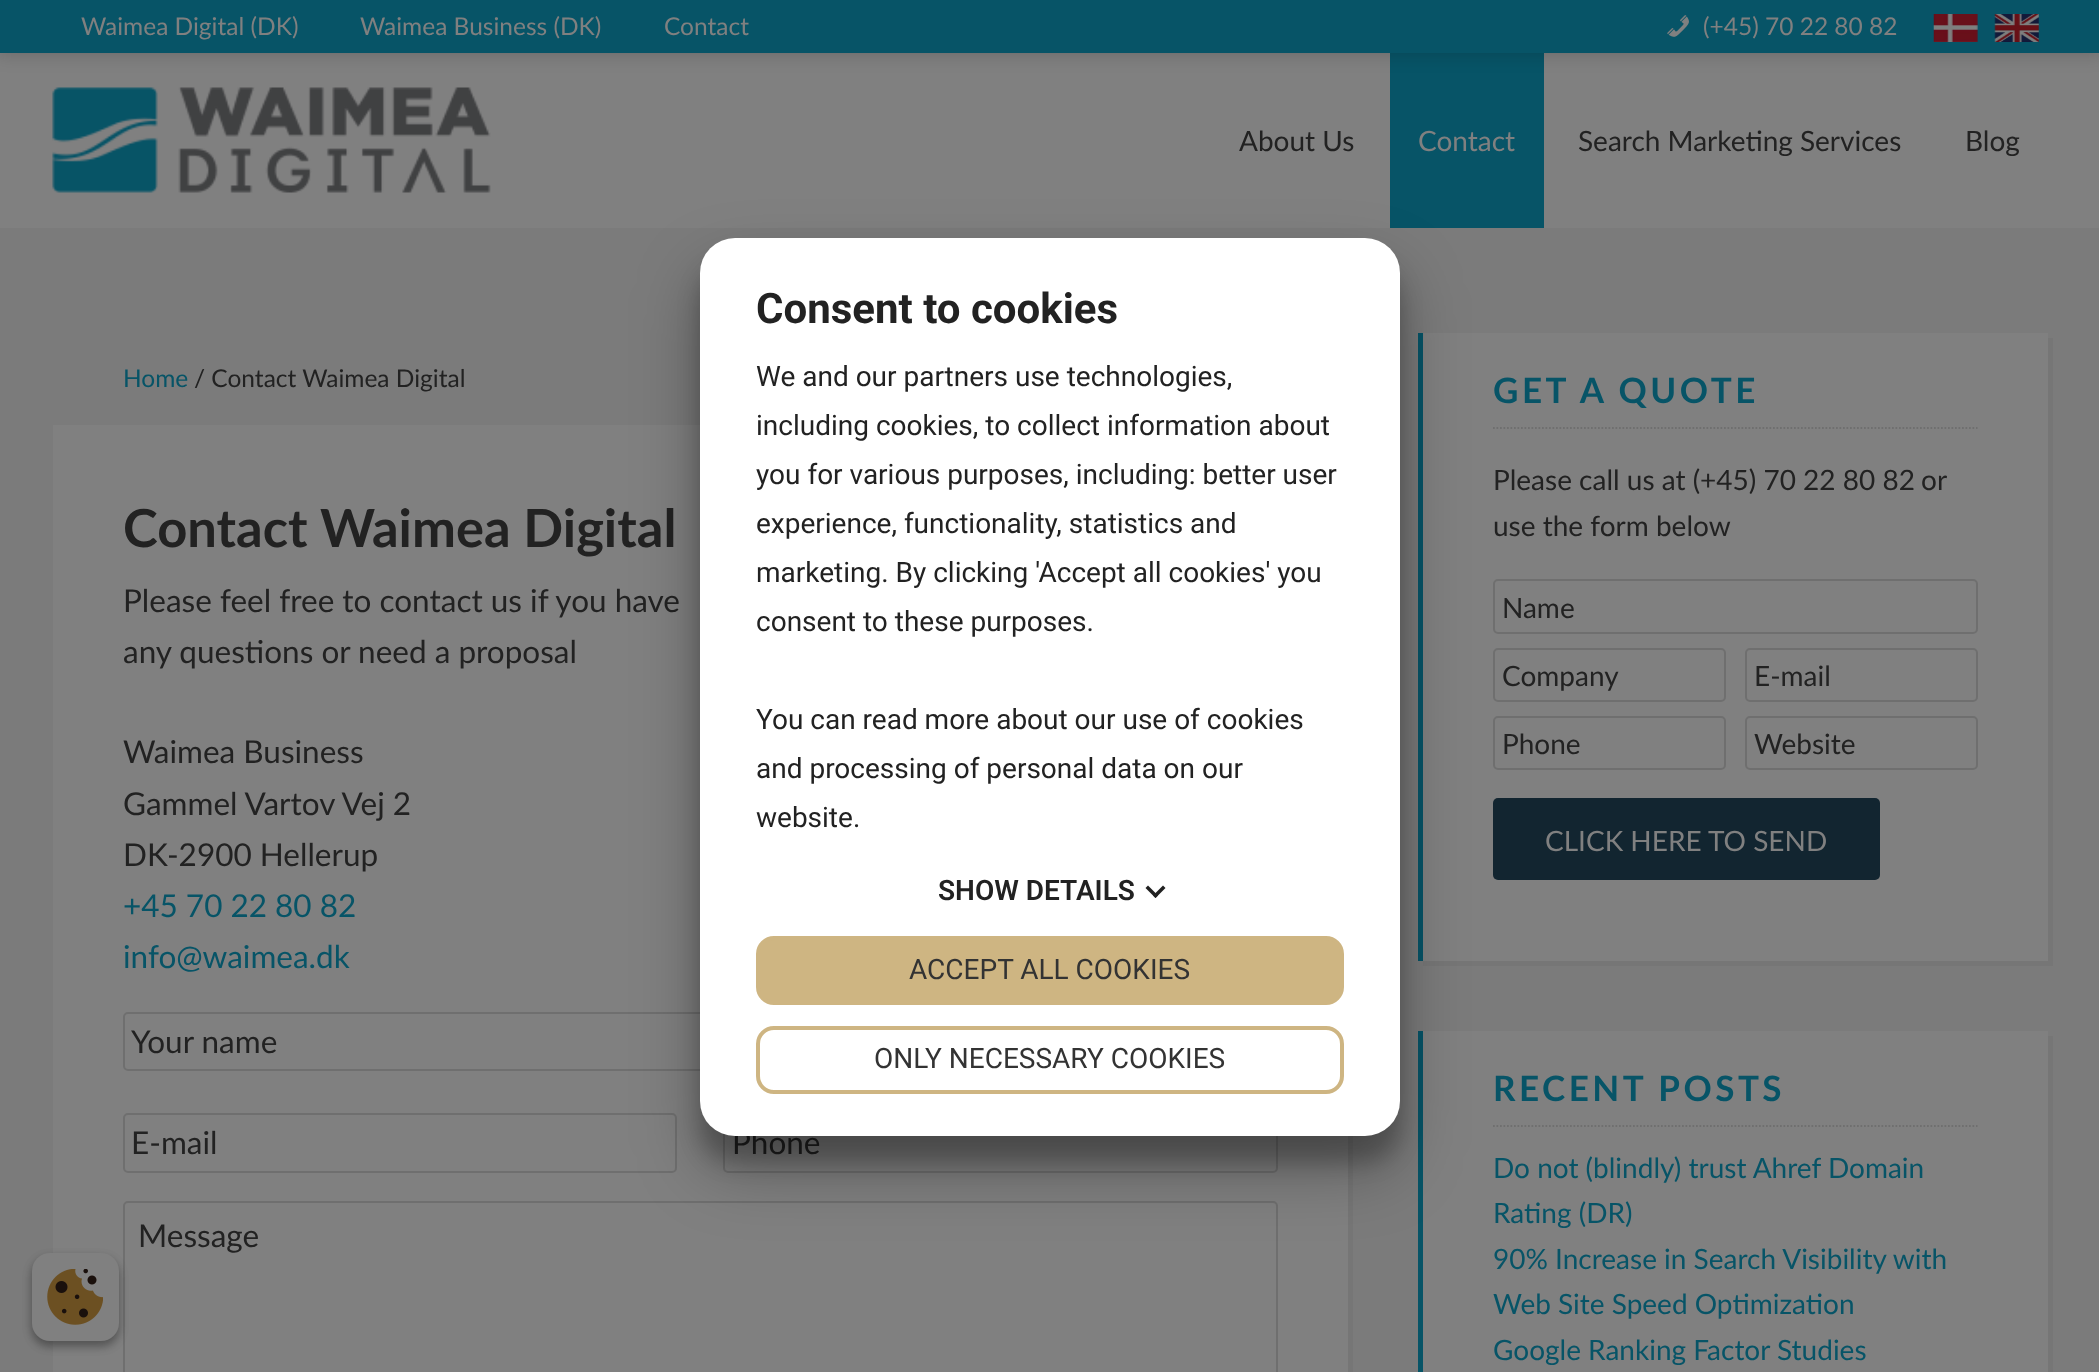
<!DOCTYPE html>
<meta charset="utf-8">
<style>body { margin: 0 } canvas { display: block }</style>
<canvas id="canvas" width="2099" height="1372"></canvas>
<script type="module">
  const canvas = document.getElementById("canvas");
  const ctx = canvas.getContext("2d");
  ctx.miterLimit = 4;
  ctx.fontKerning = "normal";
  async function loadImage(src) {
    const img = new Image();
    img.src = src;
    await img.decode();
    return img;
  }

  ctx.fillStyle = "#7b7b7b";
  ctx.fillRect(0, 0, 2099, 1372);
  ctx.fillStyle = "#808080";
  ctx.fillRect(0, 53, 2099, 175);
  ctx.fillStyle = "#075467";
  ctx.fillRect(1390, 53, 154, 175);
  ctx.fillStyle = "rgba(10, 10, 10, 0.2)";
  ctx.filter = "blur(9px)";
  ctx.beginPath();
  ctx.rect(-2, -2, 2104, 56);
  ctx.fill();
  ctx.filter = "none";
  ctx.fillStyle = "#075467";
  ctx.fillRect(0, 0, 2099, 53);
  ctx.font = "24.5px Lato";
  ctx.fillStyle = "#808080";
  ctx.fillText("Waimea Digital (DK)", 81, 35);
  ctx.fillText("Waimea Business (DK)", 360, 35);
  ctx.fillText("Contact", 664, 35);
  ctx.drawImage(await loadImage("img1.png"), 1667, 15, 22, 22);
  ctx.fillText("(+45) 70 22 80 82", 1703, 35);
  ctx.drawImage(await loadImage("img2.png"), 1933, 14, 45, 28);
  ctx.drawImage(await loadImage("img3.png"), 1994, 14, 45, 28);
  ctx.drawImage(await loadImage("img4.png"), 52, 87, 439, 106);
  ctx.font = "28px Lato";
  ctx.fillStyle = "#222222";
  ctx.fillText("About Us", 1239, 151);
  ctx.fillStyle = "#808080";
  ctx.fillText("Contact", 1418, 151);
  ctx.fillStyle = "#222222";
  ctx.fillText("Search Marketing Services", 1578, 151);
  ctx.fillText("Blog", 1965, 151);
  ctx.font = "24.5px Lato";
  ctx.fillStyle = "#075467";
  ctx.fillText("Home", 123, 387);
  ctx.fillStyle = "#222222";
  ctx.fillText("/ Contact Waimea Digital", 194, 387);
  ctx.fillStyle = "#767676";
  ctx.beginPath();
  ctx.moveTo(58, 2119);
  ctx.lineTo(58, 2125);
  ctx.lineTo(1353, 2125);
  ctx.lineTo(1353, 431);
  ctx.lineTo(1348, 431);
  ctx.lineTo(1348, 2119);
  ctx.closePath();
  ctx.fill();
  ctx.fillStyle = "#808080";
  ctx.fillRect(53, 425, 1295, 947);
  ctx.font = "bold 52.5px Lato";
  ctx.fillStyle = "#222222";
  ctx.fillText("Contact Waimea Digital", 123, 547);
  ctx.font = "31.5px Lato";
  ctx.fillText("Please feel free to contact us if you have", 123, 612);
  ctx.fillText("any questions or need a proposal", 123, 663);
  ctx.fillText("Waimea Business", 123, 763);
  ctx.fillText("Gammel Vartov Vej 2", 123, 815);
  ctx.fillText("DK-2900 Hellerup", 123, 866);
  ctx.fillStyle = "#075467";
  ctx.fillText("+45 70 22 80 82", 123, 917);
  ctx.fillText("info@waimea.dk", 123, 968);
  ctx.beginPath();
  ctx.roundRect(124, 1013, 1153, 57, 4);
  ctx.strokeStyle = "#6f6f6f";
  ctx.lineWidth = 2;
  ctx.stroke();
  ctx.fillStyle = "#222222";
  ctx.fillText("Your name", 131, 1053);
  ctx.beginPath();
  ctx.roundRect(124, 1114, 552, 58, 4);
  ctx.stroke();
  ctx.fillText("E-mail", 131, 1154);
  ctx.beginPath();
  ctx.roundRect(724, 1114, 553, 58, 4);
  ctx.stroke();
  ctx.fillText("Phone", 732, 1154);
  ctx.beginPath();
  ctx.roundRect(124, 1202, 1153, 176, 4);
  ctx.stroke();
  ctx.fillText("Message", 138, 1247);
  ctx.fillStyle = "#767676";
  ctx.beginPath();
  ctx.moveTo(1423, 961);
  ctx.lineTo(1423, 966);
  ctx.lineTo(2053, 966);
  ctx.lineTo(2053, 338);
  ctx.lineTo(2048, 338);
  ctx.lineTo(2048, 961);
  ctx.closePath();
  ctx.fill();
  ctx.fillStyle = "#808080";
  ctx.fillRect(1423, 333, 625, 628);
  ctx.fillStyle = "#075467";
  ctx.fillRect(1418, 333, 5, 628);
  ctx.beginPath();
  ctx.moveTo(1493, 428);
  ctx.lineTo(1977.5, 428);
  ctx.lineWidth = 1.8;
  ctx.setLineDash([1.75, 1.75]);
  ctx.stroke();
  ctx.letterSpacing = "3.5px";
  ctx.font = "bold 35px Lato";
  ctx.fillText("GET A QUOTE", 1493, 403);
  ctx.letterSpacing = "0px";
  ctx.font = "28px Lato";
  ctx.fillStyle = "#222222";
  ctx.fillText("Please call us at (+45) 70 22 80 82", 1493, 490);
  ctx.fillText("or", 1921, 490);
  ctx.fillText("use the form below", 1493, 536);
  ctx.beginPath();
  ctx.roundRect(1494, 580, 483, 53, 4);
  ctx.lineWidth = 2;
  ctx.setLineDash([]);
  ctx.stroke();
  ctx.fillText("Name", 1502, 618);
  ctx.beginPath();
  ctx.roundRect(1494, 649, 231, 52, 4);
  ctx.stroke();
  ctx.fillText("Company", 1502, 686);
  ctx.beginPath();
  ctx.roundRect(1746, 649, 231, 52, 4);
  ctx.stroke();
  ctx.fillText("E-mail", 1754, 686);
  ctx.beginPath();
  ctx.roundRect(1494, 717, 231, 52, 4);
  ctx.stroke();
  ctx.fillText("Phone", 1502, 754);
  ctx.beginPath();
  ctx.roundRect(1746, 717, 231, 52, 4);
  ctx.stroke();
  ctx.fillText("Website", 1754, 754);
  ctx.fillStyle = "#122530";
  ctx.beginPath();
  ctx.roundRect(1493, 798, 387, 82, 5);
  ctx.fill();
  ctx.fillStyle = "#808080";
  ctx.fillText("CLICK HERE TO SEND", 1545, 851);
  ctx.fillStyle = "#767676";
  ctx.beginPath();
  ctx.moveTo(1423, 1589);
  ctx.lineTo(1423, 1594);
  ctx.lineTo(2053, 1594);
  ctx.lineTo(2053, 1036);
  ctx.lineTo(2048, 1036);
  ctx.lineTo(2048, 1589);
  ctx.closePath();
  ctx.fill();
  ctx.fillStyle = "#808080";
  ctx.fillRect(1423, 1031, 625, 341);
  ctx.fillStyle = "#075467";
  ctx.fillRect(1418, 1031, 5, 341);
  ctx.beginPath();
  ctx.moveTo(1493, 1126);
  ctx.lineTo(1977.5, 1126);
  ctx.lineWidth = 1.8;
  ctx.setLineDash([1.75, 1.75]);
  ctx.stroke();
  ctx.letterSpacing = "3.5px";
  ctx.font = "bold 35px Lato";
  ctx.fillText("RECENT POSTS", 1493, 1101);
  ctx.letterSpacing = "0px";
  ctx.font = "28px Lato";
  ctx.fillText("Do not (blindly) trust Ahref Domain", 1493, 1178);
  ctx.fillText("Rating (DR)", 1493, 1223);
  ctx.fillText("90% Increase in Search Visibility with", 1493, 1269);
  ctx.fillText("Web Site Speed Optimization", 1493, 1314);
  ctx.fillText("Google Ranking Factor Studies", 1493, 1360);
  ctx.fillStyle = "rgba(0, 0, 0, 0.22)";
  ctx.filter = "blur(10.5px)";
  ctx.beginPath();
  ctx.roundRect(700, 264, 700, 898, 35);
  ctx.fill();
  ctx.filter = "none";
  ctx.fillStyle = "rgba(0, 0, 0, 0.3)";
  ctx.filter = "blur(33px)";
  ctx.beginPath();
  ctx.roundRect(700, 271, 700, 898, 35);
  ctx.fill();
  ctx.filter = "none";
  ctx.fillStyle = "#ffffff";
  ctx.beginPath();
  ctx.roundRect(700, 238, 700, 898, 35);
  ctx.fill();
  ctx.font = "bold 42px Roboto";
  ctx.fillStyle = "#222222";
  ctx.fillText("Consent to cookies", 756, 323);
  ctx.font = "28px Roboto";
  ctx.fillText("We and our partners use technologies,", 756, 386);
  ctx.fillText("including cookies, to collect information about", 756, 435);
  ctx.fillText("you for various purposes, including: better user", 756, 484);
  ctx.fillText("experience, functionality, statistics and", 756, 533);
  ctx.fillText("marketing. By clicking 'Accept all cookies' you", 756, 582);
  ctx.fillText("consent to these purposes.", 756, 631);
  ctx.fillText("You can read more about our use of cookies", 756, 729);
  ctx.fillText("and processing of personal data on our", 756, 778);
  ctx.fillText("website.", 756, 827);
  ctx.font = "600 28px Roboto";
  ctx.fillText("SHOW DETAILS", 938, 900);
  ctx.fillStyle = "#212121";
  ctx.beginPath();
  ctx.moveTo(1163, 885.5);
  ctx.lineTo(1165.5, 888);
  ctx.lineTo(1155.5, 898);
  ctx.lineTo(1153, 895.5);
  ctx.closePath();
  ctx.fill();
  ctx.beginPath();
  ctx.moveTo(1148, 885.5);
  ctx.lineTo(1158, 895.5);
  ctx.lineTo(1155.5, 898);
  ctx.lineTo(1145.5, 888);
  ctx.closePath();
  ctx.fill();
  ctx.fillStyle = "#ceb582";
  ctx.beginPath();
  ctx.roundRect(758, 938, 584, 65, 16);
  ctx.fill();
  ctx.strokeStyle = "#ceb582";
  ctx.lineWidth = 4;
  ctx.setLineDash([]);
  ctx.stroke();
  ctx.font = "28px Roboto";
  ctx.fillStyle = "#333333";
  ctx.fillText("ACCEPT ALL COOKIES", 909, 979);
  ctx.beginPath();
  ctx.roundRect(758, 1028, 584, 64, 16);
  ctx.stroke();
  ctx.fillText("ONLY NECESSARY COOKIES", 874, 1068);
  ctx.fillStyle = "rgba(0, 0, 0, 0.23)";
  ctx.filter = "blur(5px)";
  ctx.beginPath();
  ctx.roundRect(32, 1258, 87, 88, 18);
  ctx.fill();
  ctx.filter = "none";
  ctx.fillStyle = "rgba(0, 0, 0, 0.16)";
  ctx.filter = "blur(5px)";
  ctx.beginPath();
  ctx.roundRect(32, 1258, 87, 88, 18);
  ctx.fill();
  ctx.filter = "none";
  ctx.fillStyle = "#808080";
  ctx.beginPath();
  ctx.roundRect(32, 1253, 87, 88, 18);
  ctx.fill();
  ctx.drawImage(await loadImage("img5.png"), 47, 1269, 56, 56);
</script>
